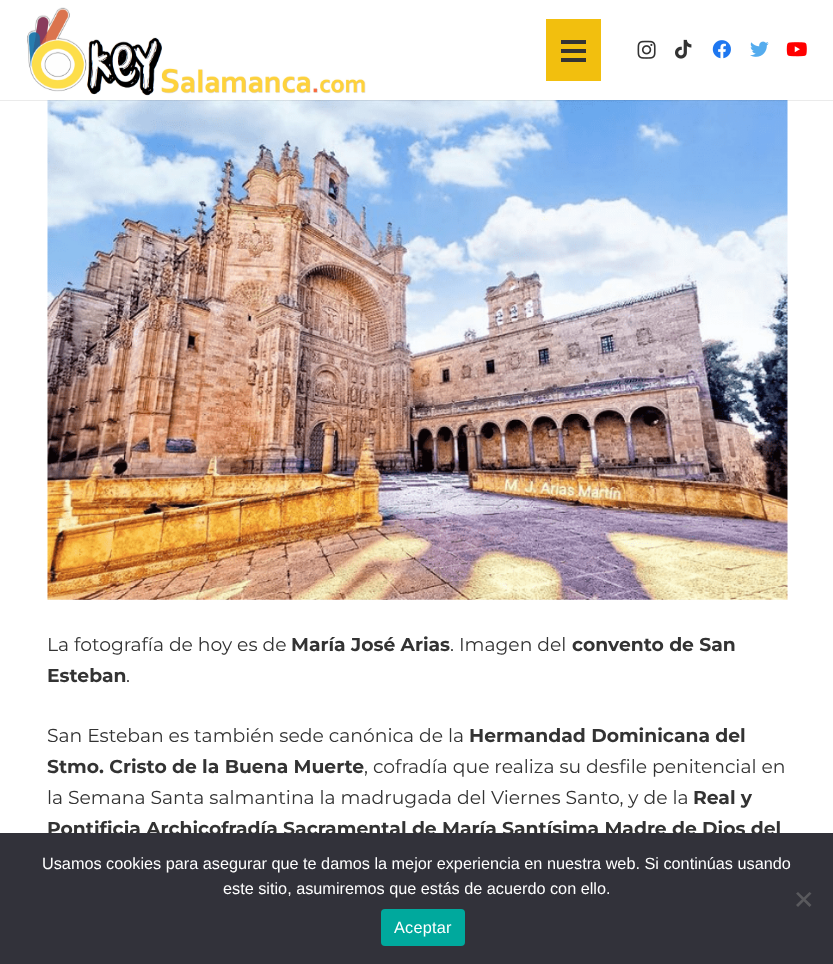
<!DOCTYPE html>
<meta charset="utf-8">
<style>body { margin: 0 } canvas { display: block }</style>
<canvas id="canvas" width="833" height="964"></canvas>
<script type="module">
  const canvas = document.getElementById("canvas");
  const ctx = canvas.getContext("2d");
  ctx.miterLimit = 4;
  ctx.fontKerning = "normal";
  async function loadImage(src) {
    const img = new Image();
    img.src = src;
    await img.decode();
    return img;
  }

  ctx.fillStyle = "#ffffff";
  ctx.fillRect(0, 0, 833, 964);
  ctx.drawImage(await loadImage("img7.png"), 47, 100, 741, 500);
  ctx.fillStyle = "rgba(0, 0, 0, 0.08)";
  ctx.beginPath();
  ctx.moveTo(0, 100);
  ctx.lineTo(0, 101);
  ctx.lineTo(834, 101);
  ctx.lineTo(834, 1);
  ctx.lineTo(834, 100);
  ctx.closePath();
  ctx.fill();
  ctx.drawImage(await loadImage("img1.png"), 27, 7, 339, 89);
  ctx.fillStyle = "#f2bf0e";
  ctx.fillRect(546, 19, 55, 62);
  ctx.fillStyle = "#333333";
  ctx.fillRect(561, 49, 25, 4);
  ctx.fillRect(561, 40, 25, 4);
  ctx.fillRect(561, 58, 25, 4);
  ctx.drawImage(await loadImage("img2.png"), 637, 40, 19, 19);
  ctx.drawImage(await loadImage("img3.png"), 675, 39, 17, 20);
  ctx.drawImage(await loadImage("img4.png"), 712, 40, 19, 19);
  ctx.drawImage(await loadImage("img5.png"), 750, 41, 19, 16);
  ctx.drawImage(await loadImage("img6.png"), 786, 42, 21, 15);
  ctx.font = "100 18.75px Montserrat";
  ctx.fillText("La fotografía de hoy es de", 47, 651);
  ctx.font = "100 18.75px 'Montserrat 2'";
  ctx.fillText("María José Arias", 291, 651);
  ctx.font = "100 18.75px Montserrat";
  ctx.fillText(". Imagen del", 450, 651);
  ctx.font = "100 18.75px 'Montserrat 2'";
  ctx.fillText("convento de San", 572, 651);
  ctx.fillText("Esteban", 47, 682);
  ctx.font = "100 18.75px Montserrat";
  ctx.fillText(".", 126, 682);
  ctx.fillText("San Esteban es también sede canónica de la", 47, 742);
  ctx.font = "100 18.75px 'Montserrat 2'";
  ctx.fillText("Hermandad Dominicana del", 469, 742);
  ctx.fillText("Stmo. Cristo de la Buena Muerte", 47, 773);
  ctx.font = "100 18.75px Montserrat";
  ctx.fillText(", cofradía que realiza su desfile penitencial en", 364, 773);
  ctx.fillText("la Semana Santa salmantina la madrugada del Viernes Santo, y de la", 47, 804);
  ctx.font = "100 18.75px 'Montserrat 2'";
  ctx.fillText("Real y", 693, 804);
  ctx.fillText("Pontificia Archicofradía Sacramental de María Santísima Madre de Dios del", 47, 835);
  ctx.fillStyle = "#32323a";
  ctx.fillRect(0, 833, 833, 131);
  ctx.font = "16.25px Liberation Sans";
  ctx.fillStyle = "#ffffff";
  ctx.fillText("Usamos cookies para asegurar que te damos la mejor experiencia en nuestra web. Si continúas usando", 42, 869);
  ctx.fillText("este sitio, asumiremos que estás de acuerdo con ello.", 223, 894);
  ctx.fillStyle = "#59595d";
  ctx.beginPath();
  ctx.moveTo(809.5, 892);
  ctx.lineTo(811.5, 893.5);
  ctx.lineTo(798, 907);
  ctx.lineTo(796, 905);
  ctx.closePath();
  ctx.fill();
  ctx.beginPath();
  ctx.moveTo(796, 893.5);
  ctx.lineTo(798, 892);
  ctx.lineTo(811.5, 905);
  ctx.lineTo(809.5, 907);
  ctx.closePath();
  ctx.fill();
  ctx.fillStyle = "#00a99d";
  ctx.beginPath();
  ctx.roundRect(381, 909, 84, 37, 4);
  ctx.fill();
  ctx.letterSpacing = "0.25px";
  ctx.fillStyle = "#ffffff";
  ctx.fillText("Aceptar", 394, 933);
</script>
